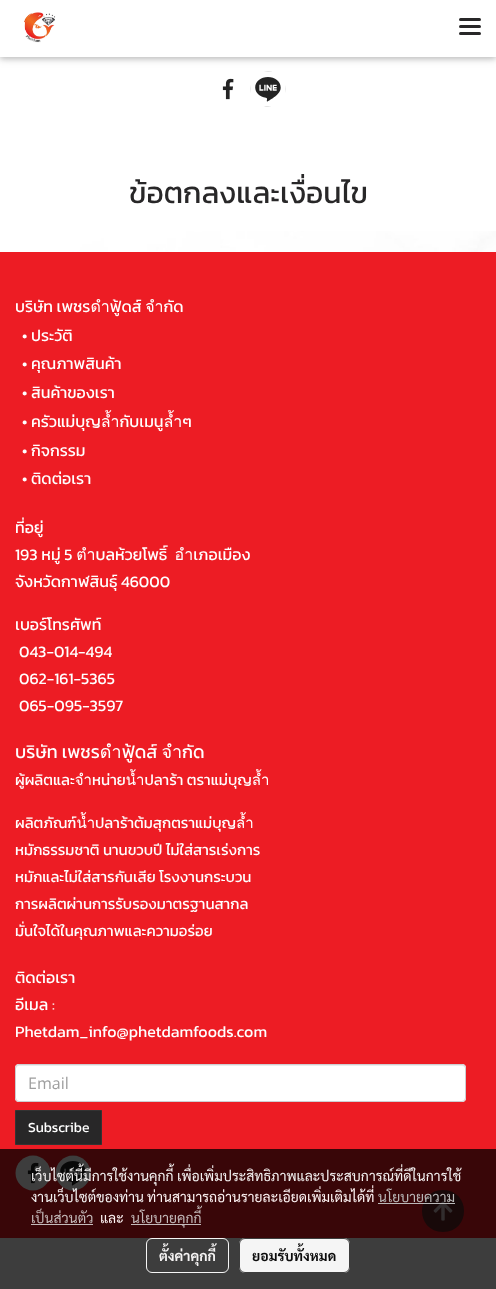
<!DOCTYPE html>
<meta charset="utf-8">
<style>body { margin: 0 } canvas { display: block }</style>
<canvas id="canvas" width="496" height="1289"></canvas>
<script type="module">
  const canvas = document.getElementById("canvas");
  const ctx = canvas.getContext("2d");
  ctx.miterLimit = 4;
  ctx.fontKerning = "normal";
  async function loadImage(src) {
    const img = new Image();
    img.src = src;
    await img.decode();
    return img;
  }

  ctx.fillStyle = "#ffffff";
  ctx.fillRect(0, 0, 496, 1289);
  ctx.drawImage(await loadImage("img1.png"), 0, 231, 496, 21);
  ctx.drawImage(await loadImage("img4.png"), 250, 71, 36, 36);
  ctx.fillStyle = "rgba(0, 0, 0, 0.12)";
  ctx.filter = "blur(5px)";
  ctx.beginPath();
  ctx.rect(0, 2, 496, 57);
  ctx.fill();
  ctx.filter = "none";
  ctx.fillStyle = "rgba(0, 0, 0, 0.16)";
  ctx.filter = "blur(2.5px)";
  ctx.beginPath();
  ctx.rect(0, 2, 496, 57);
  ctx.fill();
  ctx.filter = "none";
  ctx.fillStyle = "#ffffff";
  ctx.fillRect(0, 0, 496, 57);
  ctx.drawImage(await loadImage("img2.png"), 24, 12, 32, 31);
  ctx.fillStyle = "#282728";
  ctx.beginPath();
  ctx.roundRect(459, 25, 22, 3, 1.5);
  ctx.fill();
  ctx.beginPath();
  ctx.roundRect(459, 18, 22, 3, 1.5);
  ctx.fill();
  ctx.beginPath();
  ctx.roundRect(459, 32, 22, 3, 1.5);
  ctx.fill();
  ctx.drawImage(await loadImage("img3.png"), 222, 78, 12, 22);
  ctx.font = "30px Kanit";
  ctx.fillText("ข้อตกลงและเงื่อนไข", 129, 203);
  ctx.fillStyle = "#ed1c24";
  ctx.fillRect(0, 252, 496, 986);
  ctx.font = "16px Kanit";
  ctx.fillStyle = "#ffffff";
  ctx.fillText("บริษัท เพชรดำฟู้ดส์ จำกัด", 15, 312);
  ctx.fillText("• ประวัติ", 22, 341);
  ctx.fillText("• คุณภาพสินค้า", 22, 369);
  ctx.fillText("• สินค้าของเรา", 22, 398);
  ctx.fillText("• ครัวแม่บุญล้ำกับเมนูล้ำๆ", 22, 427);
  ctx.fillText("• กิจกรรม", 22, 456);
  ctx.fillText("• ติดต่อเรา", 22, 484);
  ctx.fillText("ที่อยู่", 15, 533);
  ctx.fillText("193 หมู่ 5 ตำบลห้วยโพธิ์  อำเภอเมือง", 15, 560);
  ctx.fillText("จังหวัดกาฬสินธุ์ 46000", 15, 587);
  ctx.fillText("เบอร์โทรศัพท์", 15, 630);
  ctx.fillText("043-014-494", 19, 657);
  ctx.fillText("062-161-5365", 19, 684);
  ctx.fillText("065-095-3597", 19, 711);
  ctx.font = "18px Kanit";
  ctx.fillText("บริษัท เพชรดำฟู้ดส์ จำกัด", 15, 758);
  ctx.font = "15px Kanit";
  ctx.fillText("ผู้ผลิตและจำหน่ายน้ำปลาร้า ตราแม่บุญล้ำ", 15, 785);
  ctx.fillText("ผลิตภัณฑ์น้ำปลาร้าต้มสุกตราแม่บุญล้ำ", 15, 828);
  ctx.fillText("หมักธรรมชาติ นานขวบปี ไม่ใส่สารเร่งการ", 15, 855);
  ctx.fillText("หมักและไม่ใส่สารกันเสีย โรงงานกระบวน", 15, 882);
  ctx.fillText("การผลิตผ่านการรับรองมาตรฐานสากล", 15, 909);
  ctx.fillText("มั่นใจได้ในคุณภาพและความอร่อย", 15, 936);
  ctx.font = "16px Kanit";
  ctx.fillText("ติดต่อเรา", 15, 983);
  ctx.fillText("อีเมล :", 15, 1010);
  ctx.fillText("Phetdam_info@phetdamfoods.com", 15, 1037);
  ctx.beginPath();
  ctx.roundRect(15, 1064, 451, 38, 4);
  ctx.fill();
  ctx.fillStyle = "#ececec";
  ctx.beginPath();
  ctx.moveTo(19, 1066);
  ctx.lineTo(462, 1066);
  ctx.bezierCurveTo(464, 1066, 465, 1067, 465, 1069);
  ctx.bezierCurveTo(465, 1067, 464, 1065, 462, 1065);
  ctx.lineTo(18, 1065);
  ctx.lineTo(16, 1067);
  ctx.lineTo(16, 1069);
  ctx.bezierCurveTo(16, 1067, 17, 1066, 19, 1066);
  ctx.closePath();
  ctx.fill();
  ctx.beginPath();
  ctx.roundRect(15.5, 1064.5, 450, 37, 3.5);
  ctx.strokeStyle = "#cdced2";
  ctx.stroke();
  ctx.font = "16px Open Sans";
  ctx.fillStyle = "#9e9e9e";
  ctx.fillText("Email", 28, 1089);
  ctx.fillStyle = "#282728";
  ctx.beginPath();
  ctx.rect(15.5, 1110.5, 86, 34);
  ctx.fill();
  ctx.strokeStyle = "#333333";
  ctx.stroke();
  ctx.font = "14px Kanit";
  ctx.fillStyle = "#ffffff";
  ctx.fillText("Subscribe", 28, 1132);
  ctx.beginPath();
  ctx.moveTo(33, 1155.5);
  ctx.bezierCurveTo(23.5, 1155.5, 15.5, 1163.5, 15.5, 1173);
  ctx.bezierCurveTo(15.5, 1182.5, 23.5, 1190.5, 33, 1190.5);
  ctx.bezierCurveTo(42.5, 1190.5, 50.5, 1182.5, 50.5, 1173);
  ctx.bezierCurveTo(50.5, 1163.5, 42.5, 1155.5, 33, 1155.5);
  ctx.closePath();
  ctx.fill();
  ctx.drawImage(await loadImage("img3.png"), 27, 1162, 12, 22);
  ctx.beginPath();
  ctx.moveTo(73, 1155.5);
  ctx.bezierCurveTo(63.5, 1155.5, 55.5, 1163.5, 55.5, 1173);
  ctx.bezierCurveTo(55.5, 1182.5, 63.5, 1190.5, 73, 1190.5);
  ctx.bezierCurveTo(82.5, 1190.5, 90.5, 1182.5, 90.5, 1173);
  ctx.bezierCurveTo(90.5, 1163.5, 82.5, 1155.5, 73, 1155.5);
  ctx.closePath();
  ctx.fill();
  ctx.drawImage(await loadImage("img5.png"), 55, 1155, 36, 36);
  ctx.fillStyle = "#652628";
  ctx.beginPath();
  ctx.moveTo(443, 1190);
  ctx.bezierCurveTo(415, 1190, 415, 1232, 443, 1232);
  ctx.bezierCurveTo(471, 1232, 471, 1190, 443, 1190);
  ctx.closePath();
  ctx.fill();
  ctx.drawImage(await loadImage("img6.png"), 433, 1201, 20, 20);
  ctx.fillStyle = "rgba(0, 0, 0, 0.76)";
  ctx.fillRect(0, 1149, 496, 140);
  ctx.font = "14px Sarabun";
  ctx.fillStyle = "#f5f3f3";
  ctx.fillText("เว็บไซต์นี้มีการใช้งานคุกกี้ เพื่อเพิ่มประสิทธิภาพและประสบการณ์ที่ดีในการใช้", 31, 1181);
  ctx.fillText("งานเว็บไซต์ของท่าน", 31, 1202);
  ctx.fillStyle = "#fef4f4";
  ctx.fillText("ท่านสามารถอ่านรายละเอียดเพิ่มเติมได้ที่", 147, 1202);
  ctx.fillStyle = "#bbb9b9";
  ctx.fillText("นโยบายความ", 378, 1202);
  ctx.fillStyle = "rgba(194, 194, 194, 0.95)";
  ctx.fillRect(378, 1203, 77, 1);
  ctx.fillStyle = "#c4baba";
  ctx.fillText("เป็นส่วนตัว", 31, 1223);
  ctx.fillRect(31, 1224, 62, 1);
  ctx.fillStyle = "#fef4f4";
  ctx.fillText("และ", 100, 1223);
  ctx.fillStyle = "#c4baba";
  ctx.fillRect(131, 1224, 70, 1);
  ctx.fillText("นโยบายคุกกี้", 131, 1223);
  ctx.beginPath();
  ctx.roundRect(146.5, 1238.5, 82, 34, 5.5);
  ctx.strokeStyle = "rgba(255, 255, 255, 0.95)";
  ctx.stroke();
  ctx.font = "bold 14px Sarabun";
  ctx.fillStyle = "#f5f3f3";
  ctx.fillText("ตั้งค่าคุกกี้", 159, 1261);
  ctx.fillStyle = "rgba(255, 255, 255, 0.95)";
  ctx.beginPath();
  ctx.roundRect(239, 1238, 111, 35, 6);
  ctx.fill();
  ctx.beginPath();
  ctx.roundRect(239.5, 1238.5, 110, 34, 5.5);
  ctx.strokeStyle = "rgba(51, 51, 51, 0.95)";
  ctx.stroke();
  ctx.fillStyle = "#0c0c0c";
  ctx.fillText("ยอมรับทั้งหมด", 252, 1261);
</script>
